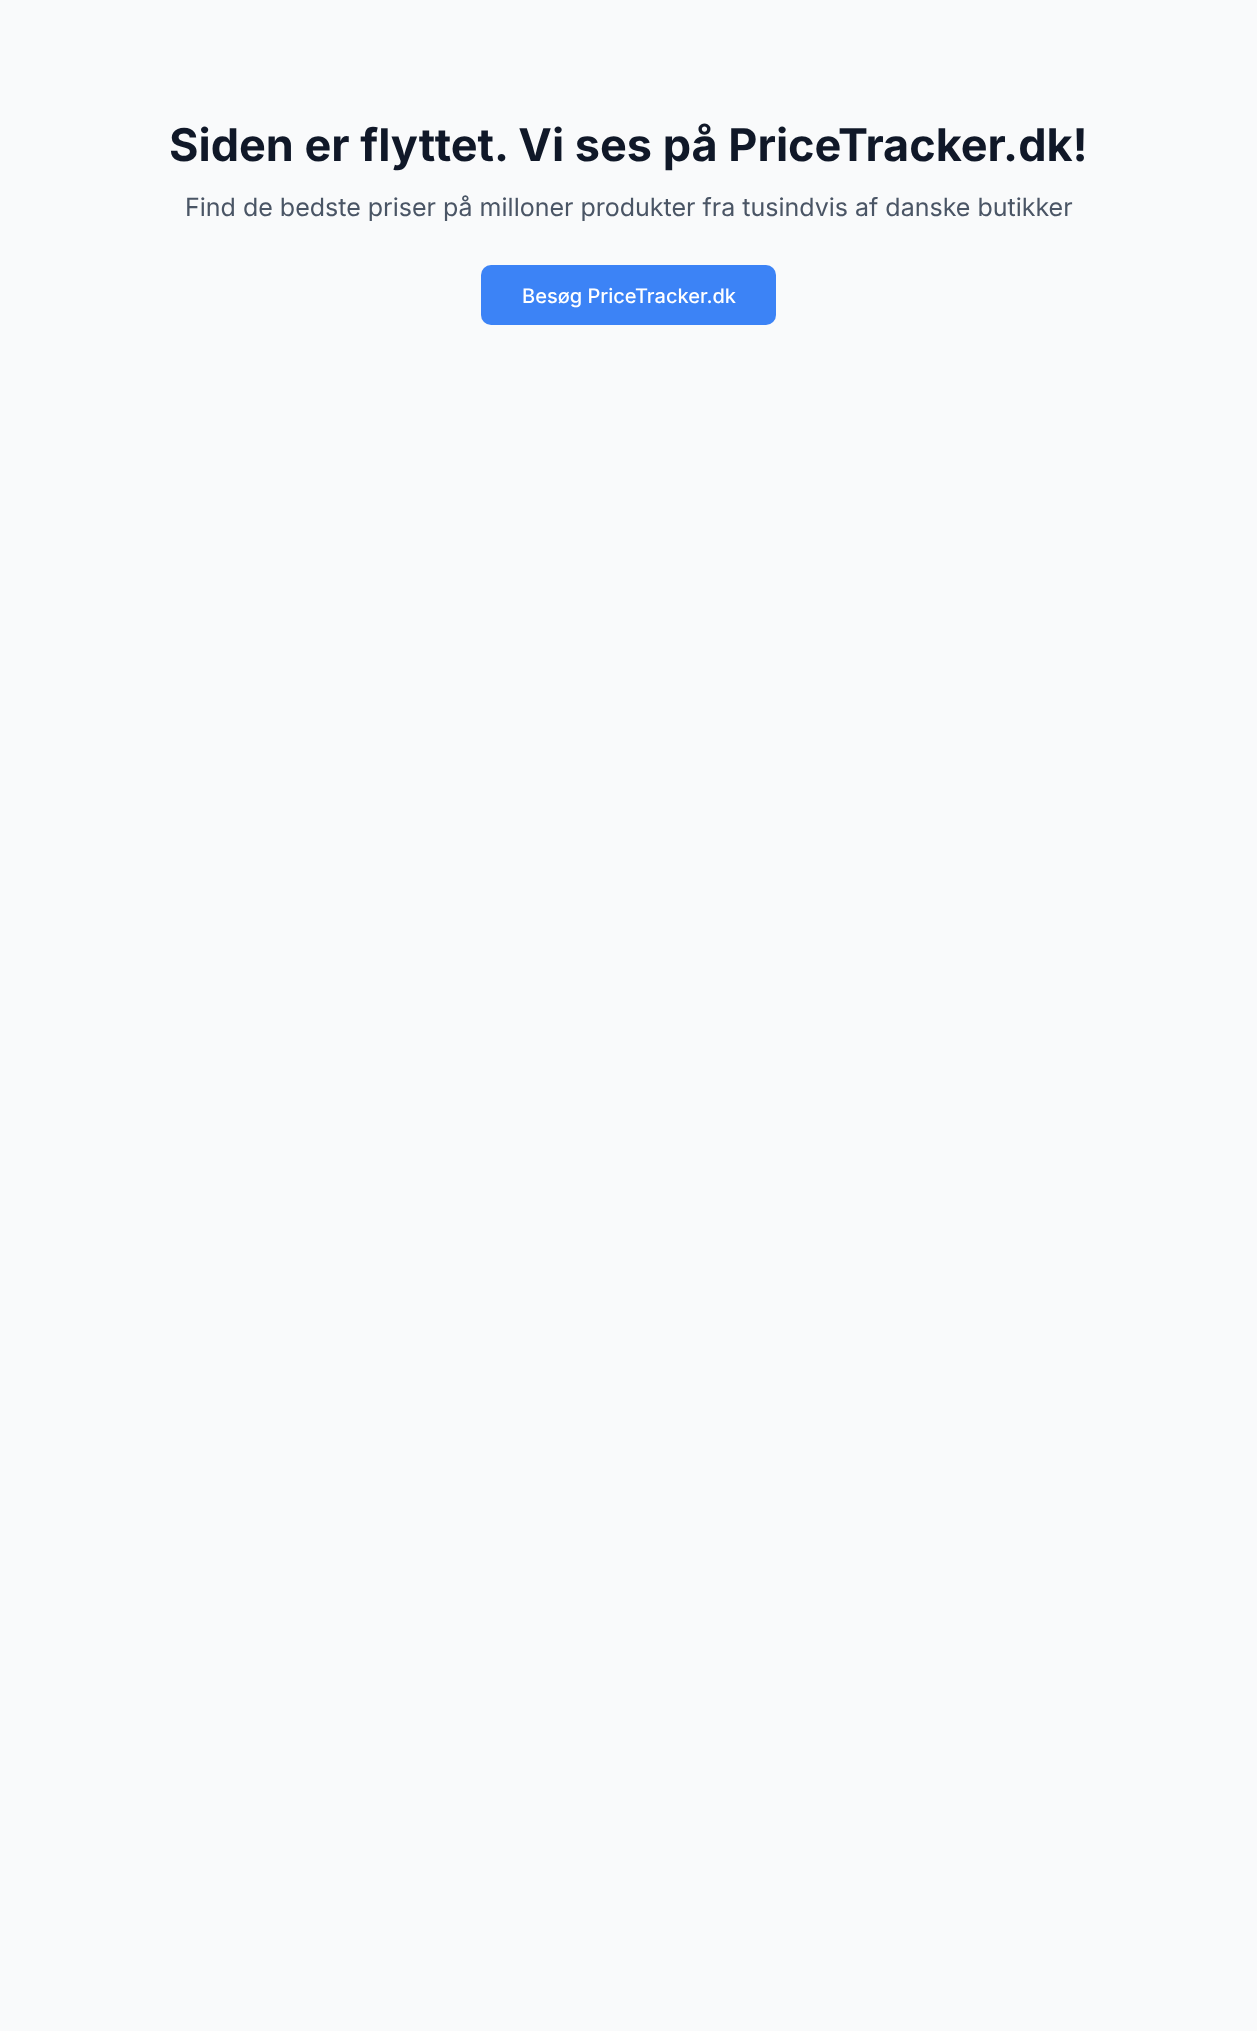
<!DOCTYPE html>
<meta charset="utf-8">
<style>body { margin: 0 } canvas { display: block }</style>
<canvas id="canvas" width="1257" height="2031"></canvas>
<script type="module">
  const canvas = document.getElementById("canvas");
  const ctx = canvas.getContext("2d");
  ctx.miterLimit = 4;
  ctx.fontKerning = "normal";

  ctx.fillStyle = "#f9fafb";
  ctx.fillRect(0, 0, 1257, 2031);
  ctx.font = "bold 45px Inter";
  ctx.fillStyle = "#101828";
  ctx.fillText("Siden er flyttet. Vi ses på PriceTracker.dk!", 169, 161);
  ctx.font = "25px Inter";
  ctx.fillStyle = "#4a5565";
  ctx.fillText("Find de bedste priser på milloner produkter fra tusindvis af danske butikker", 185, 216);
  ctx.fillStyle = "#3c83f6";
  ctx.beginPath();
  ctx.roundRect(481, 265, 295, 60, 10);
  ctx.fill();
  ctx.font = "500 20px Inter";
  ctx.fillStyle = "#ffffff";
  ctx.fillText("Besøg PriceTracker.dk", 522, 303);
</script>
